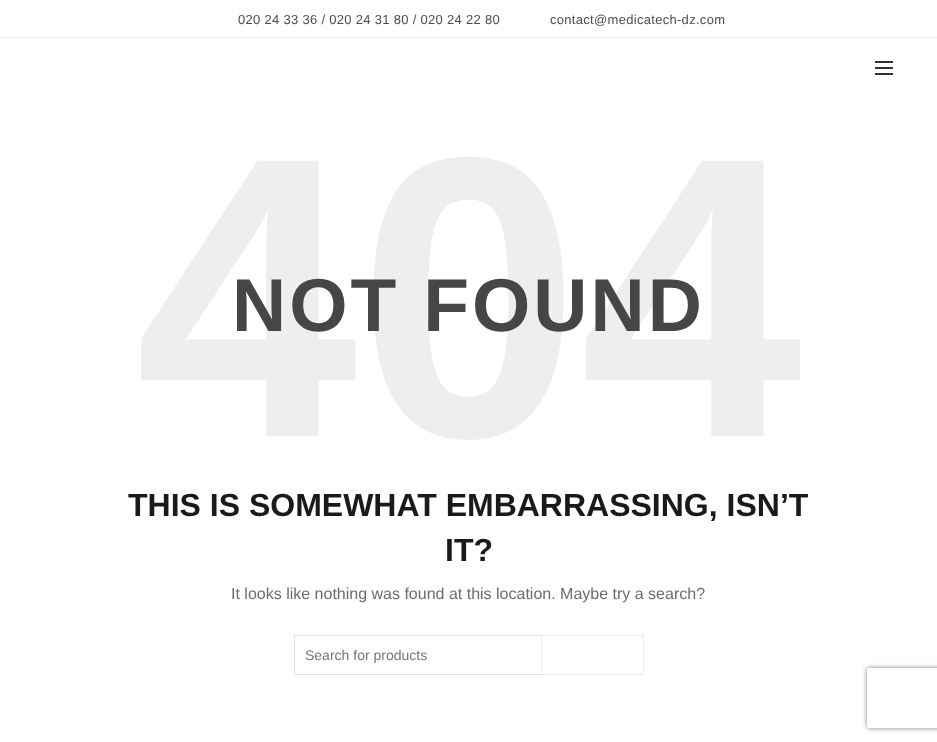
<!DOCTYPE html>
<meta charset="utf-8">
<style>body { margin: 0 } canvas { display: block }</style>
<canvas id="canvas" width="937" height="742"></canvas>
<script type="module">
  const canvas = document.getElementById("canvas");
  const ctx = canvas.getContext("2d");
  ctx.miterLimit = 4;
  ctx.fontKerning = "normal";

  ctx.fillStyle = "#ffffff";
  ctx.fillRect(0, 0, 937, 742);
  ctx.fillStyle = "#f2f2f2";
  ctx.fillRect(0, 37, 937, 1);
  ctx.letterSpacing = "0.3px";
  ctx.font = "13px Liberation Sans";
  ctx.fillStyle = "#4d4d4d";
  ctx.fillText("020 24 33 36 / 020 24 31 80 / 020 24 22 80", 238, 24);
  ctx.fillText("contact@medicatech-dz.com", 550, 24);
  ctx.fillStyle = "#333333";
  ctx.fillRect(875, 67, 18, 2);
  ctx.fillRect(875, 61, 18, 2);
  ctx.fillRect(875, 73, 18, 2);
  ctx.letterSpacing = "0px";
  ctx.font = "bold 400px Liberation Sans";
  ctx.fillStyle = "#eeeeee";
  ctx.fillText("404", 135, 436);
  ctx.letterSpacing = "3px";
  ctx.font = "bold 75px Liberation Sans";
  ctx.fillStyle = "#474646";
  ctx.fillText("NOT FOUND", 232, 331);
  ctx.letterSpacing = "0px";
  ctx.font = "bold 32px Liberation Sans";
  ctx.fillStyle = "#1b1919";
  ctx.fillText("THIS IS SOMEWHAT EMBARRASSING, ISN’T", 128, 516);
  ctx.fillText("IT?", 445, 561);
  ctx.font = "16px Liberation Sans";
  ctx.fillStyle = "#6c6c6c";
  ctx.fillText("It looks like nothing was found at this location. Maybe try a search?", 231, 599);
  ctx.strokeStyle = "#e0e0e0";
  ctx.strokeRect(294.5, 635.5, 349, 39);
  ctx.font = "14px Liberation Sans";
  ctx.fillStyle = "#757575";
  ctx.fillText("Search for products", 305, 660);
  ctx.strokeStyle = "#ececec";
  ctx.strokeRect(541.5, 635.5, 102, 39);
  ctx.save();
  ctx.beginPath();
  ctx.moveTo(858, 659);
  ctx.lineTo(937, 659);
  ctx.lineTo(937, 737);
  ctx.lineTo(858, 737);
  ctx.closePath();
  ctx.moveTo(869, 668);
  ctx.lineTo(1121, 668);
  ctx.bezierCurveTo(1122, 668, 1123, 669, 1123, 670);
  ctx.lineTo(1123, 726);
  ctx.bezierCurveTo(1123, 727, 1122, 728, 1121, 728);
  ctx.lineTo(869, 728);
  ctx.bezierCurveTo(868, 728, 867, 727, 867, 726);
  ctx.lineTo(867, 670);
  ctx.bezierCurveTo(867, 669, 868, 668, 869, 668);
  ctx.closePath();
  ctx.clip("evenodd");
  ctx.fillStyle = "#808080";
  ctx.filter = "blur(2.5px)";
  ctx.beginPath();
  ctx.roundRect(867, 668, 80, 60, 2);
  ctx.fill();
  ctx.filter = "none";
  ctx.restore();
</script>
